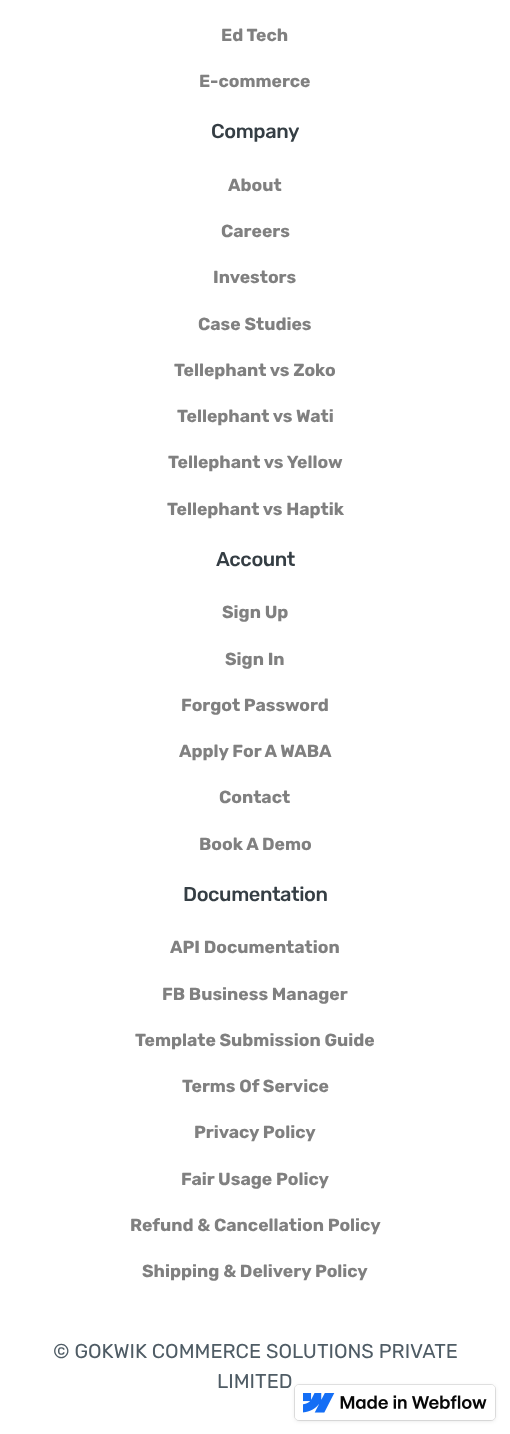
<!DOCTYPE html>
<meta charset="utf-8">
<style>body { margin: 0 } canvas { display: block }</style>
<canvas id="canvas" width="510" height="1434"></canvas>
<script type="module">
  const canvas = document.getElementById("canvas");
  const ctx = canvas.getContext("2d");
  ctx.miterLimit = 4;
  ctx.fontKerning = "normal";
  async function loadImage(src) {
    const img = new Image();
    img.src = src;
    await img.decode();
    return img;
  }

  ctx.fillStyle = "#ffffff";
  ctx.fillRect(0, 0, 510, 1434);
  ctx.font = "bold 17.5px Rubik";
  ctx.fillStyle = "#808080";
  ctx.fillText("Ed Tech", 221, 41);
  ctx.fillText("E-commerce", 199, 87);
  ctx.letterSpacing = "-0.4px";
  ctx.font = "500 20px Rubik";
  ctx.fillStyle = "#353e44";
  ctx.fillText("Company", 211, 138);
  ctx.letterSpacing = "0px";
  ctx.font = "bold 17.5px Rubik";
  ctx.fillStyle = "#808080";
  ctx.fillText("About", 228, 191);
  ctx.fillText("Careers", 221, 237);
  ctx.fillText("Investors", 213, 283);
  ctx.fillText("Case Studies", 198, 330);
  ctx.fillText("Tellephant vs Zoko", 174, 376);
  ctx.fillText("Tellephant vs Wati", 177, 422);
  ctx.fillText("Tellephant vs Yellow", 168, 468);
  ctx.fillText("Tellephant vs Haptik", 167, 515);
  ctx.letterSpacing = "-0.4px";
  ctx.font = "500 20px Rubik";
  ctx.fillStyle = "#353e44";
  ctx.fillText("Account", 216, 566);
  ctx.letterSpacing = "0px";
  ctx.font = "bold 17.5px Rubik";
  ctx.fillStyle = "#808080";
  ctx.fillText("Sign Up", 222, 618);
  ctx.fillText("Sign In", 225, 665);
  ctx.fillText("Forgot Password", 181, 711);
  ctx.fillText("Apply For A WABA", 179, 757);
  ctx.fillText("Contact", 219, 803);
  ctx.fillText("Book A Demo", 199, 850);
  ctx.letterSpacing = "-0.4px";
  ctx.font = "500 20px Rubik";
  ctx.fillStyle = "#353e44";
  ctx.fillText("Documentation", 183, 901);
  ctx.letterSpacing = "0px";
  ctx.font = "bold 17.5px Rubik";
  ctx.fillStyle = "#808080";
  ctx.fillText("API Documentation", 170, 953);
  ctx.fillText("FB Business Manager", 162, 1000);
  ctx.fillText("Template Submission Guide", 135, 1046);
  ctx.fillText("Terms Of Service", 182, 1092);
  ctx.fillText("Privacy Policy", 194, 1138);
  ctx.fillText("Fair Usage Policy", 181, 1185);
  ctx.fillText("Refund & Cancellation Policy", 130, 1231);
  ctx.fillText("Shipping & Delivery Policy", 142, 1277);
  ctx.font = "20px Rubik";
  ctx.fillStyle = "#4f5c65";
  ctx.fillText("© GOKWIK COMMERCE SOLUTIONS PRIVATE", 53, 1358);
  ctx.fillText("LIMITED", 217, 1388);
  ctx.fillStyle = "rgba(0, 0, 0, 0.1)";
  ctx.filter = "blur(2px)";
  ctx.beginPath();
  ctx.roundRect(295, 1386, 200, 35, 4);
  ctx.fill();
  ctx.filter = "none";
  ctx.beginPath();
  ctx.roundRect(294.5, 1384.5, 201, 36, 4.5);
  ctx.strokeStyle = "rgba(0, 0, 0, 0.1)";
  ctx.stroke();
  ctx.fillStyle = "#ffffff";
  ctx.beginPath();
  ctx.roundRect(295, 1385, 200, 35, 4);
  ctx.fill();
  ctx.drawImage(await loadImage("img1.png"), 303, 1393, 32, 20);
  ctx.drawImage(await loadImage("img2.png"), 340, 1395, 147, 14);
</script>
